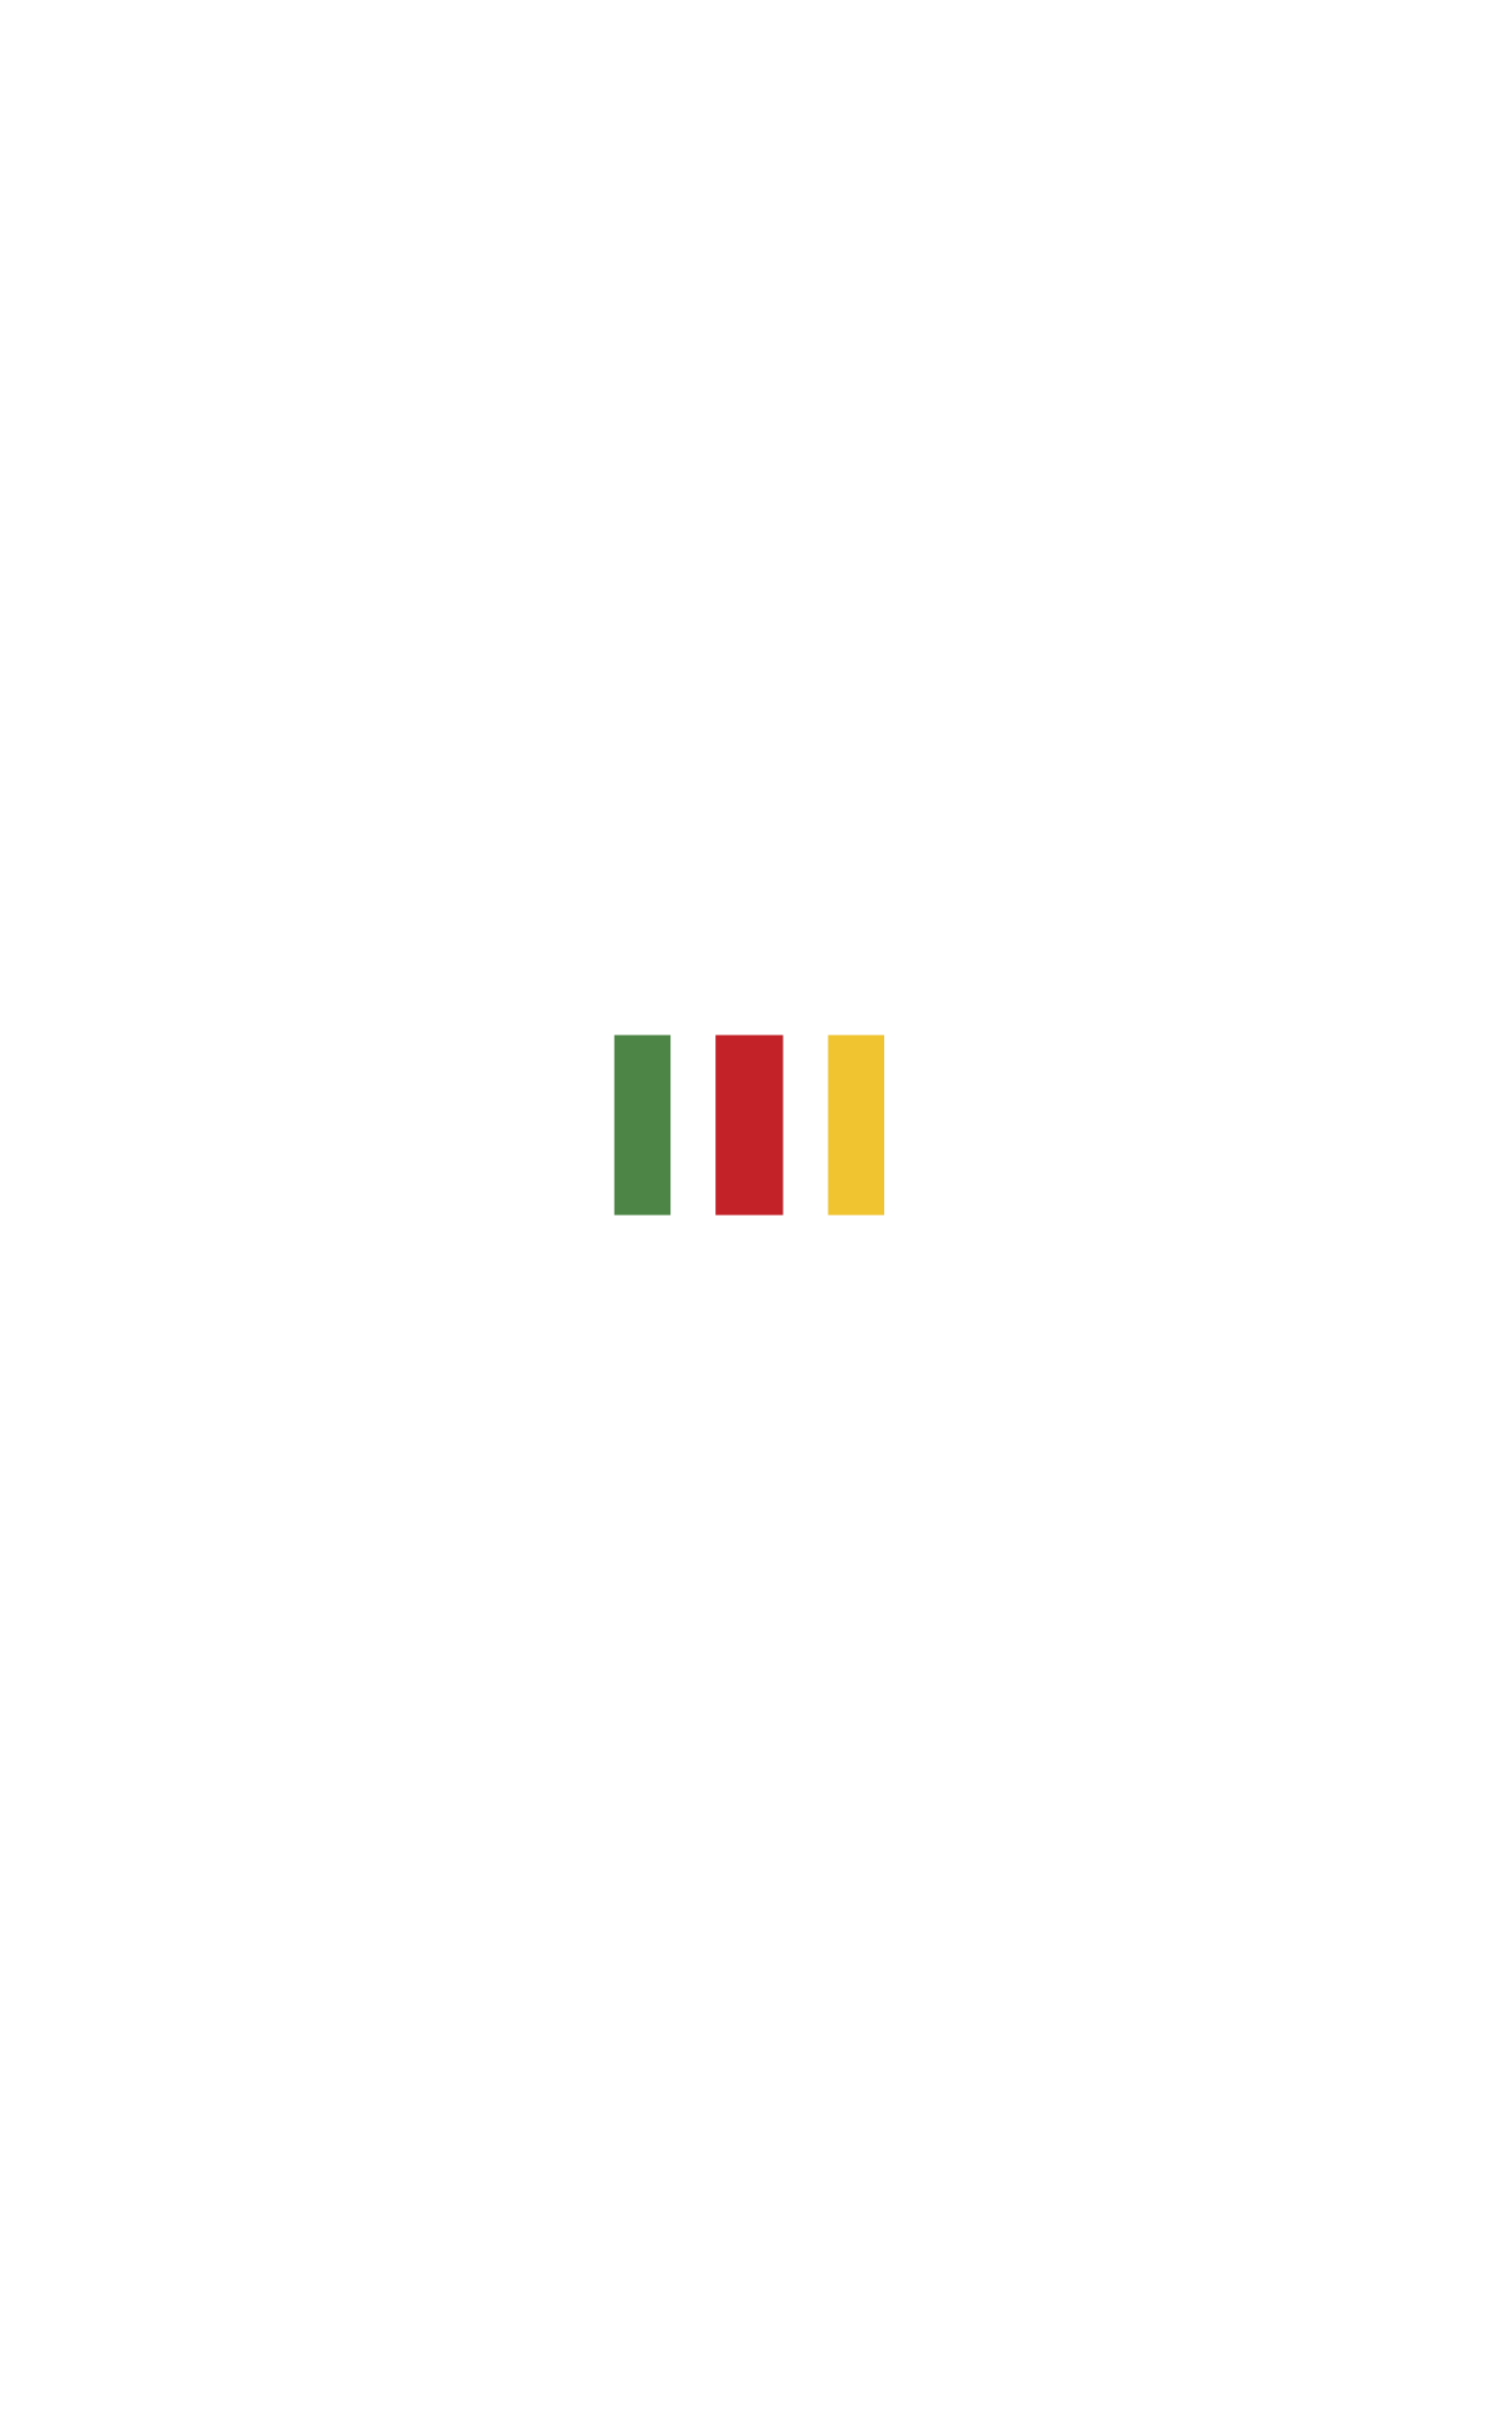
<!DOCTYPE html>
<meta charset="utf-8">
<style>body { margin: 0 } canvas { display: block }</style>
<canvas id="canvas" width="1495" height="2427"></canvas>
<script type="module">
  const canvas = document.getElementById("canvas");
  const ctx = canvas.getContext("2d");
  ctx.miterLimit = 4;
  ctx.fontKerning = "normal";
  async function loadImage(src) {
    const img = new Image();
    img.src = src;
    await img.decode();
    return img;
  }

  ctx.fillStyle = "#ffffff";
  ctx.fillRect(0, 0, 1495, 2427);
  ctx.drawImage(await loadImage("img1.png"), 613, 1034, 272, 182);
</script>
